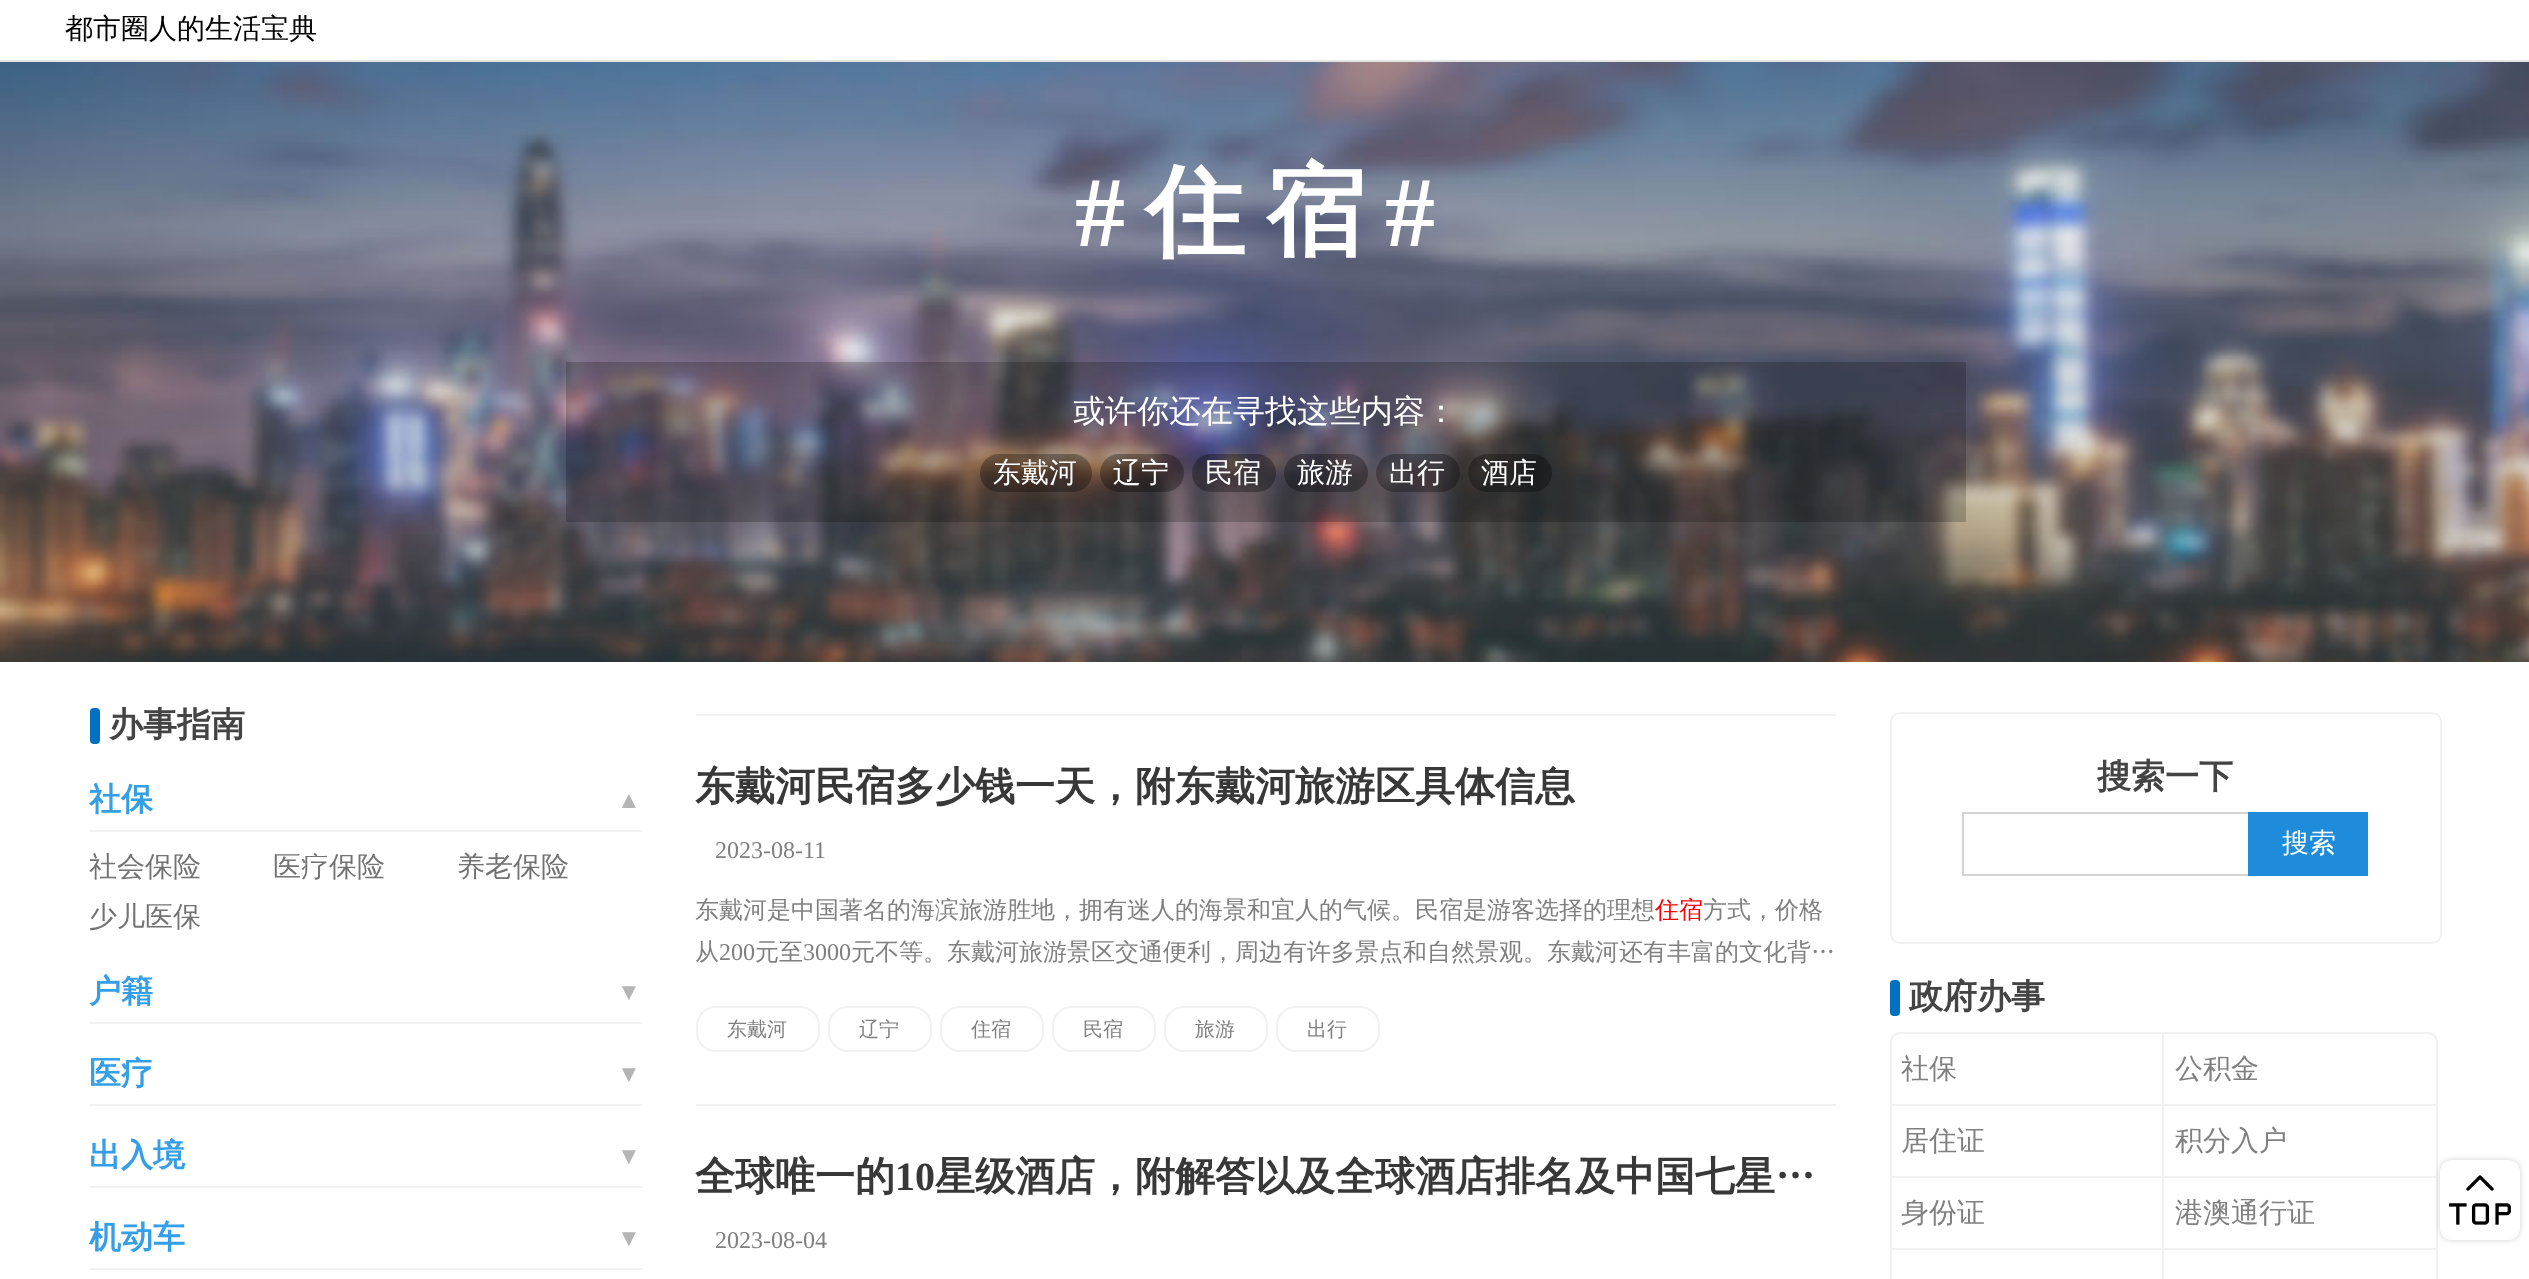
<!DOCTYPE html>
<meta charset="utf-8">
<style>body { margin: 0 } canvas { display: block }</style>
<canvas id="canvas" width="2529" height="1279"></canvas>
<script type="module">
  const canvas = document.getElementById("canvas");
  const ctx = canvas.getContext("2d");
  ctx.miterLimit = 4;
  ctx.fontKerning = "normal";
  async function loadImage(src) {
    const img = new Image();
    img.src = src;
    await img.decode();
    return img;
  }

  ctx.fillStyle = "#ffffff";
  ctx.fillRect(0, 0, 2529, 1279);
  ctx.fillStyle = "#e4e4e4";
  ctx.fillRect(0, 60, 2529, 2);
  ctx.font = "500 28px WenQuanYi Zen Hei";
  ctx.fillStyle = "#000000";
  ctx.fillText("都市圈人的生活宝典", 65, 38);
  ctx.drawImage(await loadImage("img1.png"), 0, 62, 2529, 600);
  ctx.letterSpacing = "20px";
  ctx.font = "bold 100px Liberation Serif";
  ctx.fillStyle = "#ffffff";
  ctx.fillText("#", 1075, 246);
  ctx.font = "bold 100px WenQuanYi Zen Hei";
  ctx.fillText("住宿", 1145, 246);
  ctx.font = "bold 100px Liberation Serif";
  ctx.fillText("#", 1385, 246);
  ctx.fillStyle = "rgba(0, 0, 0, 0.2)";
  ctx.fillRect(566, 362, 1400, 160);
  ctx.letterSpacing = "0px";
  ctx.font = "500 32px WenQuanYi Zen Hei";
  ctx.fillStyle = "#ffffff";
  ctx.fillText("或许你还在寻找这些内容：", 1073, 422);
  ctx.fillStyle = "rgba(0, 0, 0, 0.3)";
  ctx.beginPath();
  ctx.roundRect(980, 454, 112, 38, 19);
  ctx.fill();
  ctx.font = "500 28px WenQuanYi Zen Hei";
  ctx.fillStyle = "#ffffff";
  ctx.fillText("东戴河", 993, 482);
  ctx.fillStyle = "rgba(0, 0, 0, 0.3)";
  ctx.beginPath();
  ctx.roundRect(1100, 454, 84, 38, 19);
  ctx.fill();
  ctx.fillStyle = "#ffffff";
  ctx.fillText("辽宁", 1113, 482);
  ctx.fillStyle = "rgba(0, 0, 0, 0.3)";
  ctx.beginPath();
  ctx.roundRect(1192, 454, 84, 38, 19);
  ctx.fill();
  ctx.fillStyle = "#ffffff";
  ctx.fillText("民宿", 1205, 482);
  ctx.fillStyle = "rgba(0, 0, 0, 0.3)";
  ctx.beginPath();
  ctx.roundRect(1284, 454, 84, 38, 19);
  ctx.fill();
  ctx.fillStyle = "#ffffff";
  ctx.fillText("旅游", 1297, 482);
  ctx.fillStyle = "rgba(0, 0, 0, 0.3)";
  ctx.beginPath();
  ctx.roundRect(1376, 454, 84, 38, 19);
  ctx.fill();
  ctx.fillStyle = "#ffffff";
  ctx.fillText("出行", 1389, 482);
  ctx.fillStyle = "rgba(0, 0, 0, 0.3)";
  ctx.beginPath();
  ctx.roundRect(1468, 454, 84, 38, 19);
  ctx.fill();
  ctx.fillStyle = "#ffffff";
  ctx.fillText("酒店", 1481, 482);
  ctx.fillStyle = "#0070c0";
  ctx.beginPath();
  ctx.roundRect(90, 708, 10, 36, 4);
  ctx.fill();
  ctx.font = "bold 34px WenQuanYi Zen Hei";
  ctx.fillStyle = "#444444";
  ctx.fillText("办事指南", 109, 736);
  ctx.fillStyle = "#f1f1f1";
  ctx.fillRect(90, 830, 552, 2);
  ctx.font = "bold 32px WenQuanYi Zen Hei";
  ctx.fillStyle = "#349ee8";
  ctx.fillText("社保", 89, 810);
  ctx.font = "24px Liberation Serif";
  ctx.fillStyle = "#b5b5b5";
  ctx.fillText("▲", 617, 808);
  ctx.font = "500 28px WenQuanYi Zen Hei";
  ctx.fillStyle = "#737373";
  ctx.fillText("社会保险", 89, 876);
  ctx.fillText("医疗保险", 273, 876);
  ctx.fillText("养老保险", 457, 876);
  ctx.fillText("少儿医保", 89, 926);
  ctx.fillStyle = "#f1f1f1";
  ctx.fillRect(90, 1022, 552, 2);
  ctx.font = "bold 32px WenQuanYi Zen Hei";
  ctx.fillStyle = "#349ee8";
  ctx.fillText("户籍", 89, 1002);
  ctx.font = "24px Liberation Serif";
  ctx.fillStyle = "#b5b5b5";
  ctx.fillText("▼", 617, 1000);
  ctx.fillStyle = "#f1f1f1";
  ctx.fillRect(90, 1104, 552, 2);
  ctx.font = "bold 32px WenQuanYi Zen Hei";
  ctx.fillStyle = "#349ee8";
  ctx.fillText("医疗", 89, 1084);
  ctx.font = "24px Liberation Serif";
  ctx.fillStyle = "#b5b5b5";
  ctx.fillText("▼", 617, 1082);
  ctx.fillStyle = "#f1f1f1";
  ctx.fillRect(90, 1186, 552, 2);
  ctx.font = "bold 32px WenQuanYi Zen Hei";
  ctx.fillStyle = "#349ee8";
  ctx.fillText("出入境", 89, 1166);
  ctx.font = "24px Liberation Serif";
  ctx.fillStyle = "#b5b5b5";
  ctx.fillText("▼", 617, 1164);
  ctx.fillStyle = "#f1f1f1";
  ctx.fillRect(90, 1268, 552, 2);
  ctx.font = "bold 32px WenQuanYi Zen Hei";
  ctx.fillStyle = "#349ee8";
  ctx.fillText("机动车", 89, 1248);
  ctx.font = "24px Liberation Serif";
  ctx.fillStyle = "#b5b5b5";
  ctx.fillText("▼", 617, 1246);
  ctx.fillStyle = "#f1f1f1";
  ctx.fillRect(696, 714, 1140, 2);
  ctx.fillRect(696, 1104, 1140, 2);
  ctx.font = "bold 40px WenQuanYi Zen Hei";
  ctx.fillStyle = "#383838";
  ctx.fillText("东戴河民宿多少钱一天，附东戴河旅游区具体信息", 695, 800);
  ctx.font = "24px Liberation Serif";
  ctx.fillStyle = "#808080";
  ctx.fillText("2023-08-11", 715, 858);
  ctx.font = "500 24px WenQuanYi Zen Hei";
  ctx.fillText("东戴河是中国著名的海滨旅游胜地，拥有迷人的海景和宜人的气候。民宿是游客选择的理想", 695, 918);
  ctx.fillStyle = "#ff0000";
  ctx.fillText("住宿", 1655, 918);
  ctx.fillStyle = "#808080";
  ctx.fillText("方式，价格", 1703, 918);
  ctx.fillText("从", 695, 960);
  ctx.font = "24px Liberation Serif";
  ctx.fillText("200", 719, 960);
  ctx.font = "500 24px WenQuanYi Zen Hei";
  ctx.fillText("元至", 755, 960);
  ctx.font = "24px Liberation Serif";
  ctx.fillText("3000", 803, 960);
  ctx.font = "500 24px WenQuanYi Zen Hei";
  ctx.fillText("元不等。东戴河旅游景区交通便利，周边有许多景点和自然景观。东戴河还有丰富的文化背…", 851, 960);
  ctx.beginPath();
  ctx.roundRect(697, 1007, 122, 44, 19);
  ctx.strokeStyle = "#f1f1f1";
  ctx.lineWidth = 2;
  ctx.stroke();
  ctx.font = "500 20px WenQuanYi Zen Hei";
  ctx.fillText("东戴河", 727, 1036);
  ctx.beginPath();
  ctx.roundRect(829, 1007, 102, 44, 19);
  ctx.stroke();
  ctx.fillText("辽宁", 859, 1036);
  ctx.beginPath();
  ctx.roundRect(941, 1007, 102, 44, 19);
  ctx.stroke();
  ctx.fillText("住宿", 971, 1036);
  ctx.beginPath();
  ctx.roundRect(1053, 1007, 102, 44, 19);
  ctx.stroke();
  ctx.fillText("民宿", 1083, 1036);
  ctx.beginPath();
  ctx.roundRect(1165, 1007, 102, 44, 19);
  ctx.stroke();
  ctx.fillText("旅游", 1195, 1036);
  ctx.beginPath();
  ctx.roundRect(1277, 1007, 102, 44, 19);
  ctx.stroke();
  ctx.fillText("出行", 1307, 1036);
  ctx.font = "bold 40px WenQuanYi Zen Hei";
  ctx.fillStyle = "#383838";
  ctx.fillText("全球唯一的", 695, 1190);
  ctx.font = "bold 40px Liberation Serif";
  ctx.fillText("10", 895, 1190);
  ctx.font = "bold 40px WenQuanYi Zen Hei";
  ctx.fillText("星级酒店，附解答以及全球酒店排名及中国七星…", 935, 1190);
  ctx.font = "24px Liberation Serif";
  ctx.fillStyle = "#808080";
  ctx.fillText("2023-08-04", 715, 1248);
  ctx.beginPath();
  ctx.roundRect(1891, 713, 550, 230, 9);
  ctx.stroke();
  ctx.font = "bold 34px WenQuanYi Zen Hei";
  ctx.fillStyle = "#444444";
  ctx.fillText("搜索一下", 2097, 788);
  ctx.fillStyle = "#d3d3d3";
  ctx.fillRect(1962, 812, 286, 2);
  ctx.fillRect(1962, 874, 286, 2);
  ctx.fillRect(1962, 812, 2, 64);
  ctx.fillStyle = "#1e8cda";
  ctx.fillRect(2248, 812, 120, 64);
  ctx.font = "500 27px WenQuanYi Zen Hei";
  ctx.fillStyle = "#ffffff";
  ctx.fillText("搜索", 2282, 852);
  ctx.fillStyle = "#0070c0";
  ctx.beginPath();
  ctx.roundRect(1890, 980, 10, 36, 4);
  ctx.fill();
  ctx.font = "bold 34px WenQuanYi Zen Hei";
  ctx.fillStyle = "#444444";
  ctx.fillText("政府办事", 1909, 1008);
  ctx.fillStyle = "#f1f1f1";
  ctx.beginPath();
  ctx.moveTo(1900, 1032);
  ctx.lineTo(2162, 1032);
  ctx.lineTo(2162, 1104);
  ctx.lineTo(1890, 1104);
  ctx.lineTo(1890, 1042);
  ctx.bezierCurveTo(1890, 1036, 1894, 1032, 1900, 1032);
  ctx.closePath();
  ctx.moveTo(1900, 1034);
  ctx.lineTo(2162, 1034);
  ctx.lineTo(2162, 1104);
  ctx.lineTo(1892, 1104);
  ctx.lineTo(1892, 1042);
  ctx.bezierCurveTo(1892, 1038, 1896, 1034, 1900, 1034);
  ctx.closePath();
  ctx.fill("evenodd");
  ctx.font = "500 28px WenQuanYi Zen Hei";
  ctx.fillStyle = "#808080";
  ctx.fillText("社保", 1901, 1078);
  ctx.fillStyle = "#f1f1f1";
  ctx.beginPath();
  ctx.moveTo(2162, 1032);
  ctx.lineTo(2428, 1032);
  ctx.bezierCurveTo(2434, 1032, 2438, 1036, 2438, 1042);
  ctx.lineTo(2438, 1104);
  ctx.lineTo(2162, 1104);
  ctx.closePath();
  ctx.moveTo(2164, 1034);
  ctx.lineTo(2428, 1034);
  ctx.bezierCurveTo(2432, 1034, 2436, 1038, 2436, 1042);
  ctx.lineTo(2436, 1104);
  ctx.lineTo(2164, 1104);
  ctx.closePath();
  ctx.fill("evenodd");
  ctx.fillStyle = "#808080";
  ctx.fillText("公积金", 2175, 1078);
  ctx.fillStyle = "#f1f1f1";
  ctx.fillRect(1890, 1104, 548, 2);
  ctx.fillRect(1890, 1104, 2, 72);
  ctx.fillStyle = "#808080";
  ctx.fillText("居住证", 1901, 1150);
  ctx.fillStyle = "#f1f1f1";
  ctx.fillRect(2436, 1104, 2, 72);
  ctx.fillRect(2162, 1104, 2, 72);
  ctx.fillStyle = "#808080";
  ctx.fillText("积分入户", 2175, 1150);
  ctx.fillStyle = "#f1f1f1";
  ctx.fillRect(1890, 1176, 548, 2);
  ctx.fillRect(1890, 1176, 2, 72);
  ctx.fillStyle = "#808080";
  ctx.fillText("身份证", 1901, 1222);
  ctx.fillStyle = "#f1f1f1";
  ctx.fillRect(2436, 1176, 2, 72);
  ctx.fillRect(2162, 1176, 2, 72);
  ctx.fillStyle = "#808080";
  ctx.fillText("港澳通行证", 2175, 1222);
  ctx.fillStyle = "#f1f1f1";
  ctx.beginPath();
  ctx.moveTo(1890, 1248);
  ctx.lineTo(2162, 1248);
  ctx.lineTo(2162, 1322);
  ctx.lineTo(1900, 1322);
  ctx.bezierCurveTo(1894, 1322, 1890, 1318, 1890, 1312);
  ctx.closePath();
  ctx.moveTo(1892, 1250);
  ctx.lineTo(2162, 1250);
  ctx.lineTo(2162, 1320);
  ctx.lineTo(1900, 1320);
  ctx.bezierCurveTo(1896, 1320, 1892, 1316, 1892, 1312);
  ctx.closePath();
  ctx.fill("evenodd");
  ctx.strokeRect(2163, 1249, 274, 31);
  ctx.fillStyle = "rgba(0, 0, 0, 0.18)";
  ctx.filter = "blur(3px)";
  ctx.beginPath();
  ctx.roundRect(2440, 1160, 80, 80, 12);
  ctx.fill();
  ctx.filter = "none";
  ctx.fillStyle = "#ffffff";
  ctx.beginPath();
  ctx.roundRect(2440, 1160, 80, 80, 12);
  ctx.fill();
  ctx.drawImage(await loadImage("img2.png"), 2449, 1175, 62, 50);
</script>
